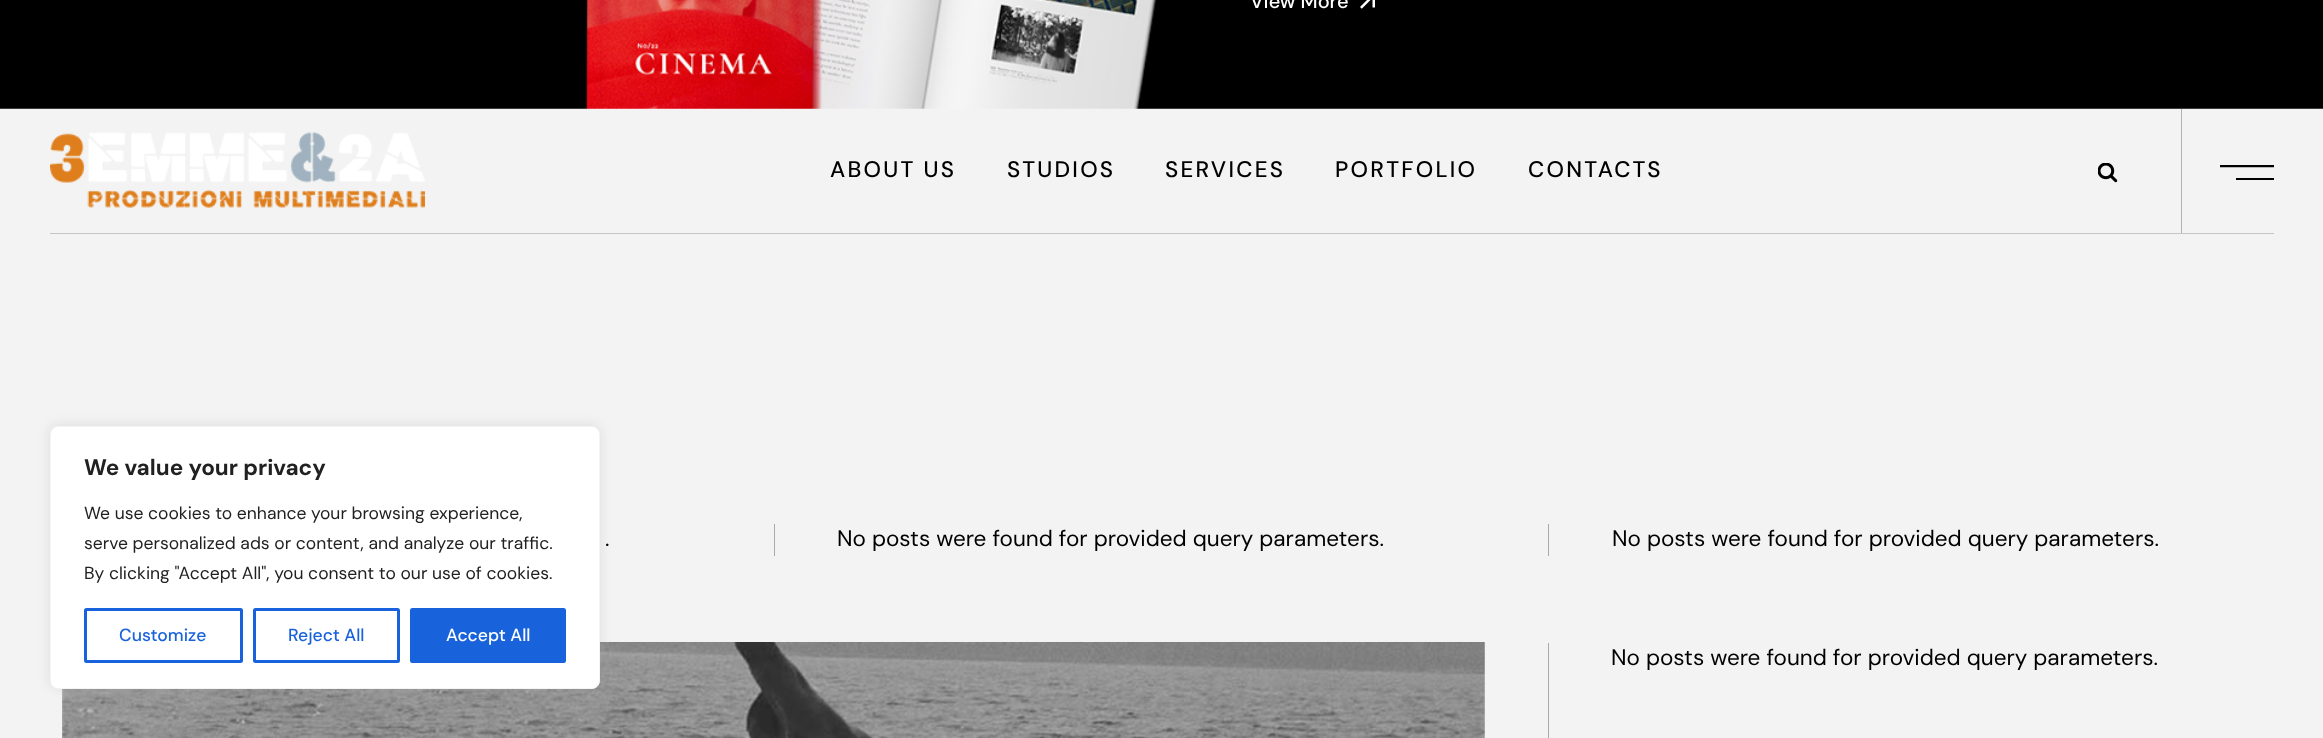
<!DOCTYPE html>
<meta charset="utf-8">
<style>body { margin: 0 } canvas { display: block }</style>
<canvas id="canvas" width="2323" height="738"></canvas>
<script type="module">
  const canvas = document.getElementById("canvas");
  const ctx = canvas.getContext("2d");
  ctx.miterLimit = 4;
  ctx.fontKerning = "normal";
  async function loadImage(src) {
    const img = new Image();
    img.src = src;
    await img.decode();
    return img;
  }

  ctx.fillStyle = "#f3f3f3";
  ctx.fillRect(0, 0, 2323, 738);
  ctx.drawImage(await loadImage("img5.png"), 62, 642, 1423, 96);
  ctx.fillStyle = "rgba(172, 171, 171, 0.3)";
  ctx.filter = "blur(6px)";
  ctx.beginPath();
  ctx.roundRect(50, 425, 550, 263, 8);
  ctx.fill();
  ctx.filter = "none";
  ctx.fillStyle = "#ffffff";
  ctx.beginPath();
  ctx.roundRect(50.5, 426.5, 549, 262, 7.5);
  ctx.fill();
  ctx.strokeStyle = "#f4f4f4";
  ctx.stroke();
  ctx.font = "bold 22.5px DM Sans";
  ctx.fillStyle = "#212121";
  ctx.fillText("We value your privacy", 84, 475);
  ctx.font = "17.5px DM Sans";
  ctx.fillText("We use cookies to enhance your browsing experience,", 84, 519);
  ctx.fillText("serve personalized ads or content, and analyze our traffic.", 84, 549);
  ctx.fillText("By clicking \"Accept All\", you consent to our use of cookies.", 84, 579);
  ctx.beginPath();
  ctx.roundRect(85.5, 609.5, 156, 52, 1);
  ctx.strokeStyle = "#1863dc";
  ctx.lineWidth = 3;
  ctx.stroke();
  ctx.font = "500 17.5px DM Sans";
  ctx.fillStyle = "#1863dc";
  ctx.fillText("Customize", 119, 641);
  ctx.beginPath();
  ctx.roundRect(254.5, 609.5, 144, 52, 1);
  ctx.stroke();
  ctx.fillText("Reject All", 288, 641);
  ctx.beginPath();
  ctx.roundRect(411.5, 609.5, 153, 52, 1);
  ctx.fill();
  ctx.stroke();
  ctx.fillStyle = "#ffffff";
  ctx.fillText("Accept All", 446, 641);
  ctx.drawImage(await loadImage("img1.png"), 0, 0, 2323, 109);
  ctx.font = "500 20px DM Sans";
  ctx.fillText("View More", 1250, 8);
  ctx.drawImage(await loadImage("img2.png"), 1360, 0, 15, 9);
  ctx.fillStyle = "#c5c5c5";
  ctx.fillRect(50, 233, 2224, 1);
  ctx.drawImage(await loadImage("img3.png"), 50, 132, 375, 76);
  ctx.letterSpacing = "2.25px";
  ctx.font = "500 22.5px DM Sans";
  ctx.fillStyle = "#000000";
  ctx.fillText("ABOUT US", 830, 177);
  ctx.fillText("STUDIOS", 1007, 177);
  ctx.fillText("SERVICES", 1165, 177);
  ctx.fillText("PORTFOLIO", 1335, 177);
  ctx.fillText("CONTACTS", 1528, 177);
  ctx.drawImage(await loadImage("img4.png"), 2098, 163, 20, 20);
  ctx.fillStyle = "#b2b2b2";
  ctx.fillRect(2181, 109, 1, 124);
  ctx.save();
  ctx.beginPath();
  ctx.rect(2220, 165, 54, 15);
  ctx.clip();
  ctx.beginPath();
  ctx.moveTo(2274, 166);
  ctx.lineTo(2220, 166);
  ctx.strokeStyle = "#000000";
  ctx.lineWidth = 2.5;
  ctx.stroke();
  ctx.restore();
  ctx.fillStyle = "#000000";
  ctx.fillRect(2236, 178, 38, 2);
  ctx.fillStyle = "#aaaaaa";
  ctx.fillRect(774, 524, 1, 32);
  ctx.letterSpacing = "0px";
  ctx.font = "22.5px DM Sans";
  ctx.fillStyle = "#000000";
  ctx.fillText(".", 605, 546);
  ctx.fillStyle = "#aaaaaa";
  ctx.fillRect(1548, 524, 1, 32);
  ctx.fillStyle = "#000000";
  ctx.fillText("No posts were found for provided query parameters.", 837, 546);
  ctx.fillText("No posts were found for provided query parameters.", 1612, 546);
  ctx.fillStyle = "#aaaaaa";
  ctx.fillRect(1548, 643, 1, 95);
  ctx.fillStyle = "#000000";
  ctx.fillText("No posts were found for provided query parameters.", 1611, 665);
</script>
